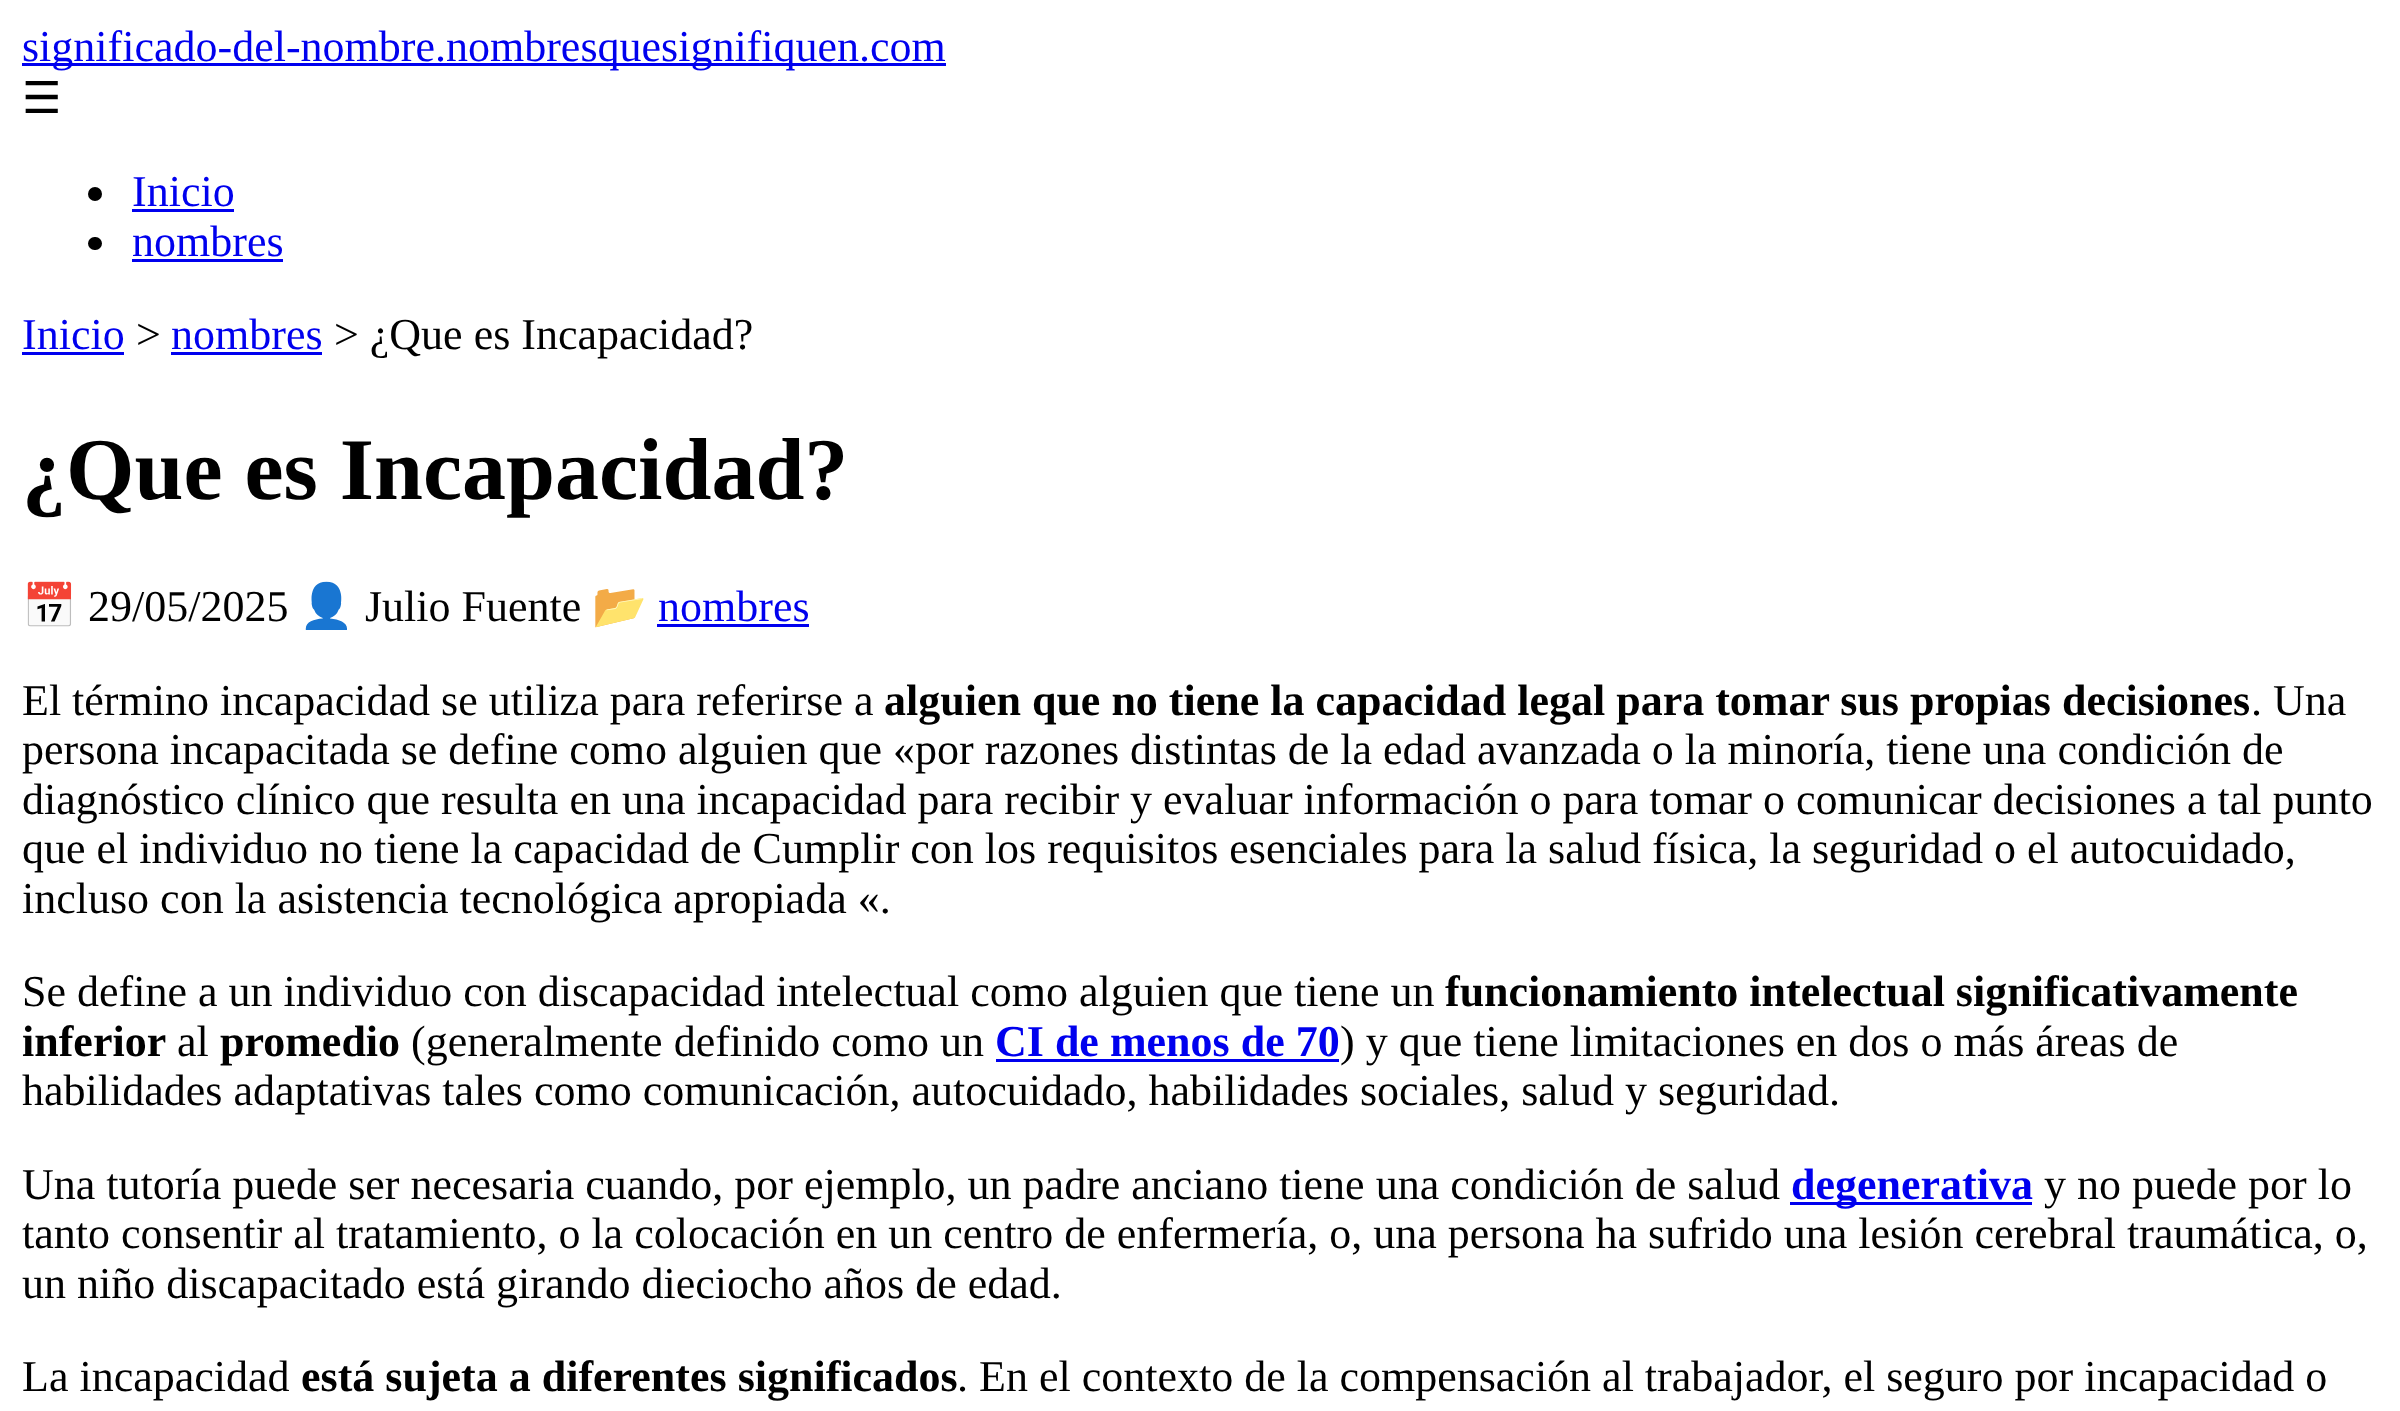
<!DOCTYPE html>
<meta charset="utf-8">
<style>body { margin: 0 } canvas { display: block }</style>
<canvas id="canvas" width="2400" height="1411"></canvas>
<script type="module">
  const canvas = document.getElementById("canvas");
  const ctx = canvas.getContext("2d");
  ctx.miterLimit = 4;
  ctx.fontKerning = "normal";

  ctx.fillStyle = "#ffffff";
  ctx.fillRect(0, 0, 2400, 1411);
  ctx.fillStyle = "#0000ee";
  ctx.fillRect(22, 63, 924, 3);
  ctx.font = "44px Liberation Serif";
  ctx.fillText("significado-del-nombre.nombresquesignifiquen.com", 22, 61);
  ctx.font = "44px DejaVu Sans";
  ctx.fillStyle = "#000000";
  ctx.fillText("☰", 22, 113);
  ctx.beginPath();
  ctx.arc(95, 194, 7, 0, Math.PI * 2);
  ctx.fill();
  ctx.font = "44px Liberation Serif";
  ctx.fillStyle = "#0000ee";
  ctx.fillText("Inicio", 132, 206);
  ctx.fillRect(132, 209, 102, 3);
  ctx.fillStyle = "#000000";
  ctx.beginPath();
  ctx.roundRect(88, 237, 14, 13, 6.5);
  ctx.fill();
  ctx.fillStyle = "#0000ee";
  ctx.fillText("nombres", 132, 256);
  ctx.fillRect(132, 259, 151, 3);
  ctx.fillText("Inicio", 22, 349);
  ctx.fillRect(22, 352, 102, 3);
  ctx.fillStyle = "#000000";
  ctx.fillText(">", 136, 349);
  ctx.fillStyle = "#0000ee";
  ctx.fillText("nombres", 171, 349);
  ctx.fillRect(171, 352, 151, 3);
  ctx.fillStyle = "#000000";
  ctx.fillText("> ¿Que es Incapacidad?", 334, 349);
  ctx.font = "bold 88px Liberation Serif";
  ctx.fillText("¿Que es Incapacidad?", 22, 499);
  ctx.font = "44px Noto Color Emoji";
  ctx.fillText("📅", 22, 621);
  ctx.font = "44px Liberation Serif";
  ctx.fillText("29/05/2025", 88, 621);
  ctx.font = "44px Noto Color Emoji";
  ctx.fillText("👤", 299, 621);
  ctx.font = "44px Liberation Serif";
  ctx.fillText("Julio Fuente", 365, 621);
  ctx.font = "44px Noto Color Emoji";
  ctx.fillText("📂", 592, 621);
  ctx.font = "44px Liberation Serif";
  ctx.fillStyle = "#0000ee";
  ctx.fillText("nombres", 658, 621);
  ctx.fillRect(657, 624, 152, 3);
  ctx.fillStyle = "#000000";
  ctx.fillText("El término incapacidad se utiliza para referirse a", 22, 715);
  ctx.font = "bold 44px Liberation Serif";
  ctx.fillText("alguien que no tiene la capacidad legal para tomar sus propias decisiones", 884, 715);
  ctx.font = "44px Liberation Serif";
  ctx.fillText(". Una", 2251, 715);
  ctx.fillText("persona incapacitada se define como alguien que «por razones distintas de la edad avanzada o la minoría, tiene una condición de", 22, 764);
  ctx.fillText("diagnóstico clínico que resulta en una incapacidad para recibir y evaluar información o para tomar o comunicar decisiones a tal punto", 22, 814);
  ctx.fillText("que el individuo no tiene la capacidad de Cumplir con los requisitos esenciales para la salud física, la seguridad o el autocuidado,", 22, 863);
  ctx.fillText("incluso con la asistencia tecnológica apropiada «.", 22, 913);
  ctx.fillText("Se define a un individuo con discapacidad intelectual como alguien que tiene un", 22, 1006);
  ctx.font = "bold 44px Liberation Serif";
  ctx.fillText("funcionamiento intelectual significativamente", 1445, 1006);
  ctx.fillText("inferior", 22, 1056);
  ctx.font = "44px Liberation Serif";
  ctx.fillText("al", 177, 1056);
  ctx.font = "bold 44px Liberation Serif";
  ctx.fillText("promedio", 220, 1056);
  ctx.font = "44px Liberation Serif";
  ctx.fillText("(generalmente definido como un", 411, 1056);
  ctx.font = "bold 44px Liberation Serif";
  ctx.fillStyle = "#0000ee";
  ctx.fillText("CI de menos de 70", 995, 1056);
  ctx.fillRect(996, 1059, 343, 3);
  ctx.font = "44px Liberation Serif";
  ctx.fillStyle = "#000000";
  ctx.fillText(") y que tiene limitaciones en dos o más áreas de", 1340, 1056);
  ctx.fillText("habilidades adaptativas tales como comunicación, autocuidado, habilidades sociales, salud y seguridad.", 22, 1105);
  ctx.fillText("Una tutoría puede ser necesaria cuando, por ejemplo, un padre anciano tiene una condición de salud", 22, 1199);
  ctx.fillStyle = "#0000ee";
  ctx.fillRect(1790, 1202, 242, 3);
  ctx.font = "bold 44px Liberation Serif";
  ctx.fillText("degenerativa", 1791, 1199);
  ctx.font = "44px Liberation Serif";
  ctx.fillStyle = "#000000";
  ctx.fillText("y no puede por lo", 2044, 1199);
  ctx.fillText("tanto consentir al tratamiento, o la colocación en un centro de enfermería, o, una persona ha sufrido una lesión cerebral traumática, o,", 22, 1248);
  ctx.fillText("un niño discapacitado está girando dieciocho años de edad.", 22, 1298);
  ctx.fillText("La incapacidad", 22, 1391);
  ctx.font = "bold 44px Liberation Serif";
  ctx.fillText("está sujeta a diferentes significados", 301, 1391);
  ctx.font = "44px Liberation Serif";
  ctx.fillText(". En el contexto de la compensación al trabajador, el seguro por incapacidad o", 957, 1391);
</script>
